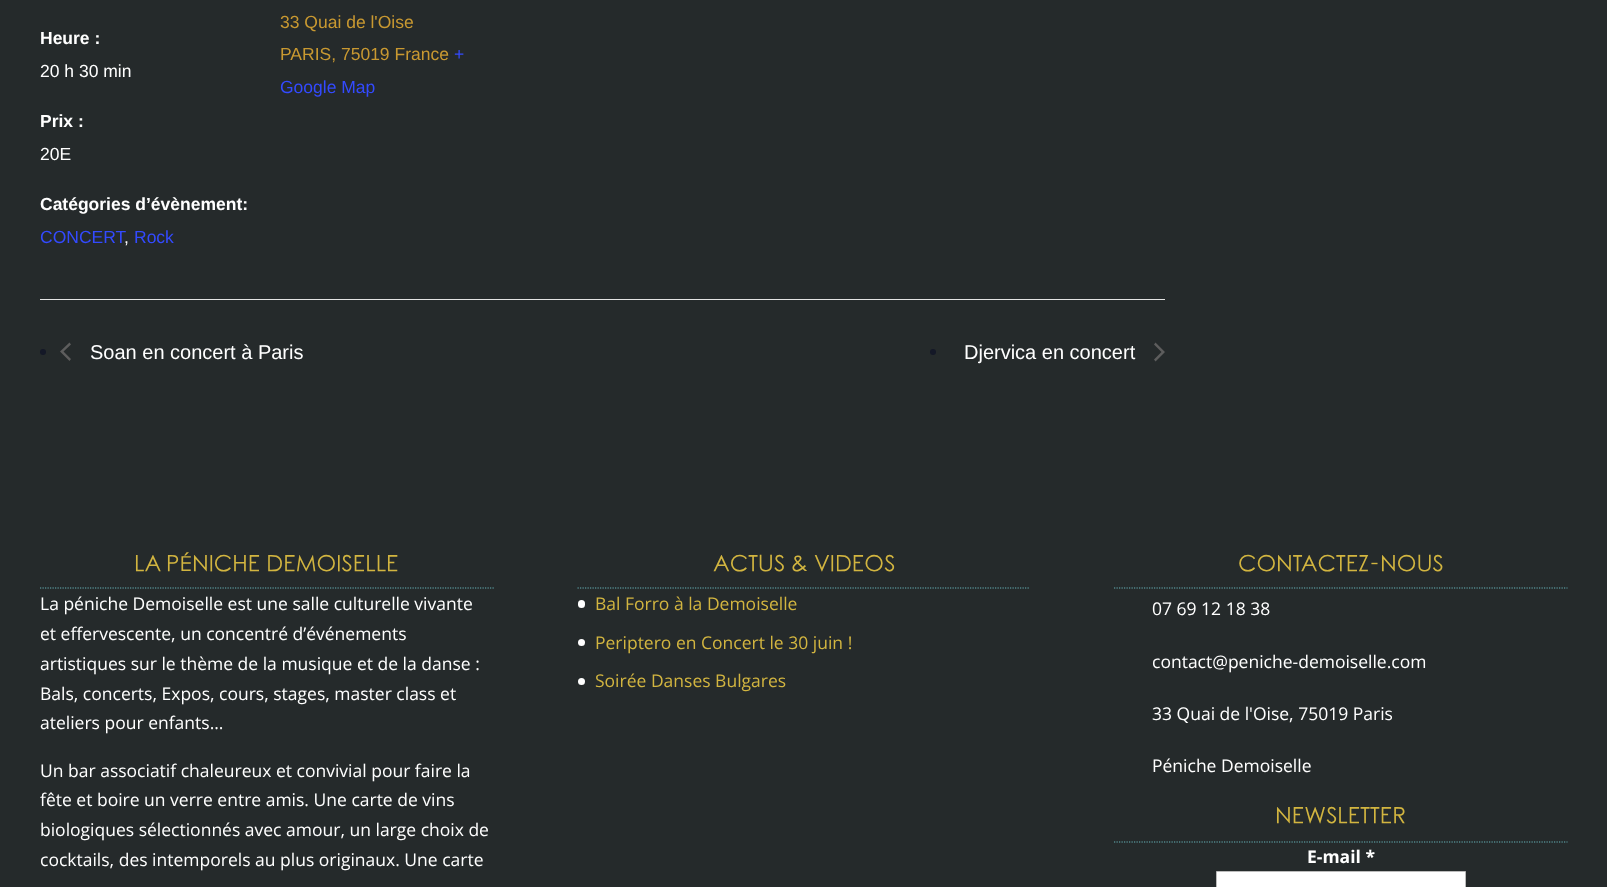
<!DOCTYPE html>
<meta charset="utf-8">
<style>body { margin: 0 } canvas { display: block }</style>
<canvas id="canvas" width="1607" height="887"></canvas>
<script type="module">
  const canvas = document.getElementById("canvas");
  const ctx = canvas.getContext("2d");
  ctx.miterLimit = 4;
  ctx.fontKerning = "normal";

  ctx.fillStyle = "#252a2b";
  ctx.fillRect(0, 0, 1607, 887);
  ctx.font = "bold 17.5px Liberation Sans";
  ctx.fillStyle = "#ffffff";
  ctx.fillText("Heure :", 40, 44);
  ctx.font = "17.5px Liberation Sans";
  ctx.fillText("20 h 30 min", 40, 77);
  ctx.font = "bold 17.5px Liberation Sans";
  ctx.fillText("Prix :", 40, 127);
  ctx.font = "17.5px Liberation Sans";
  ctx.fillText("20E", 40, 160);
  ctx.font = "bold 17.5px Liberation Sans";
  ctx.fillText("Catégories d’évènement:", 40, 210);
  ctx.font = "17.5px Liberation Sans";
  ctx.fillStyle = "#334aff";
  ctx.fillText("CONCERT", 40, 243);
  ctx.fillText("Rock", 134, 243);
  ctx.fillStyle = "#ffffff";
  ctx.fillText(",", 124, 243);
  ctx.fillStyle = "#c99931";
  ctx.fillText("33 Quai de l'Oise", 280, 28);
  ctx.fillText("PARIS, 75019 France", 280, 60);
  ctx.fillStyle = "#334aff";
  ctx.fillText("+", 454, 60);
  ctx.fillText("Google Map", 280, 93);
  ctx.fillStyle = "#e4e4e4";
  ctx.fillRect(40, 299, 1125, 1);
  ctx.fillStyle = "#141827";
  ctx.beginPath();
  ctx.arc(43, 352, 3, 0, Math.PI * 2);
  ctx.fill();
  ctx.fillStyle = "#5d5d5d";
  ctx.beginPath();
  ctx.moveTo(71, 359);
  ctx.lineTo(69.5, 361);
  ctx.lineTo(60, 351.5);
  ctx.lineTo(69.5, 342.5);
  ctx.lineTo(71, 344.5);
  ctx.lineTo(63.5, 351.5);
  ctx.closePath();
  ctx.fill();
  ctx.font = "20px Liberation Sans";
  ctx.fillStyle = "#ffffff";
  ctx.fillText("Soan en concert à Paris", 90, 359);
  ctx.fillStyle = "#141827";
  ctx.beginPath();
  ctx.arc(933, 352, 3, 0, Math.PI * 2);
  ctx.fill();
  ctx.fillStyle = "#ffffff";
  ctx.fillText("Djervica en concert", 964, 359);
  ctx.fillStyle = "#5d5d5d";
  ctx.beginPath();
  ctx.moveTo(1154, 344.5);
  ctx.lineTo(1155.5, 342.5);
  ctx.lineTo(1165, 352);
  ctx.lineTo(1155.5, 361.5);
  ctx.lineTo(1154, 359.5);
  ctx.lineTo(1161.5, 352);
  ctx.closePath();
  ctx.fill();
  ctx.beginPath();
  ctx.moveTo(40, 588);
  ctx.lineTo(494, 588);
  ctx.strokeStyle = "#66b1b7";
  ctx.lineWidth = 1.2;
  ctx.setLineDash([1.25, 1.25]);
  ctx.stroke();
  ctx.font = "22.5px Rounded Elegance";
  ctx.fillStyle = "#d2b540";
  ctx.fillText("LA PÉNICHE DEMOISELLE", 134, 572);
  ctx.font = "17.5px Open Sans";
  ctx.fillStyle = "#ffffff";
  ctx.fillText("La péniche Demoiselle est une salle culturelle vivante", 40, 610);
  ctx.fillText("et effervescente, un concentré d’événements", 40, 640);
  ctx.fillText("artistiques sur le thème de la musique et de la danse :", 40, 670);
  ctx.fillText("Bals, concerts, Expos, cours, stages, master class et", 40, 700);
  ctx.fillText("ateliers pour enfants...", 40, 729);
  ctx.fillText("Un bar associatif chaleureux et convivial pour faire la", 40, 777);
  ctx.fillText("fête et boire un verre entre amis. Une carte de vins", 40, 806);
  ctx.fillText("biologiques sélectionnés avec amour, un large choix de", 40, 836);
  ctx.fillText("cocktails, des intemporels au plus originaux. Une carte", 40, 866);
  ctx.beginPath();
  ctx.moveTo(577.5, 588);
  ctx.lineTo(1030, 588);
  ctx.stroke();
  ctx.font = "22.5px Rounded Elegance";
  ctx.fillStyle = "#d2b540";
  ctx.fillText("ACTUS & VIDEOS", 713, 572);
  ctx.fillStyle = "#ffffff";
  ctx.beginPath();
  ctx.roundRect(578, 600, 7, 8, 3.5);
  ctx.fill();
  ctx.font = "17.5px Open Sans";
  ctx.fillStyle = "#d2b540";
  ctx.fillText("Bal Forro à la Demoiselle", 595, 610);
  ctx.fillStyle = "#ffffff";
  ctx.beginPath();
  ctx.arc(581.5, 642.5, 3.5, 0, Math.PI * 2);
  ctx.fill();
  ctx.fillStyle = "#d2b540";
  ctx.fillText("Periptero en Concert le 30 juin !", 595, 649);
  ctx.fillStyle = "#ffffff";
  ctx.beginPath();
  ctx.arc(581.5, 681.5, 3.5, 0, Math.PI * 2);
  ctx.fill();
  ctx.fillStyle = "#d2b540";
  ctx.fillText("Soirée Danses Bulgares", 595, 687);
  ctx.beginPath();
  ctx.moveTo(1114, 588);
  ctx.lineTo(1567.5, 588);
  ctx.stroke();
  ctx.font = "22.5px Rounded Elegance";
  ctx.fillText("CONTACTEZ-NOUS", 1238, 572);
  ctx.font = "17.5px Open Sans";
  ctx.fillStyle = "#ffffff";
  ctx.fillText("07 69 12 18 38", 1152, 615);
  ctx.fillText("contact@peniche-demoiselle.com", 1152, 668);
  ctx.fillText("33 Quai de l'Oise, 75019 Paris", 1152, 720);
  ctx.fillText("Péniche Demoiselle", 1152, 772);
  ctx.beginPath();
  ctx.moveTo(1114, 842);
  ctx.lineTo(1567.5, 842);
  ctx.stroke();
  ctx.font = "22.5px Rounded Elegance";
  ctx.fillStyle = "#d2b540";
  ctx.fillText("NEWSLETTER", 1275, 824);
  ctx.font = "bold 17.5px Open Sans";
  ctx.fillStyle = "#ffffff";
  ctx.fillText("E-mail *", 1307, 863);
  ctx.beginPath();
  ctx.rect(1216.5, 871.5, 249, 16);
  ctx.fill();
  ctx.strokeStyle = "#bbbbbb";
  ctx.lineWidth = 1;
  ctx.setLineDash([]);
  ctx.stroke();
</script>
